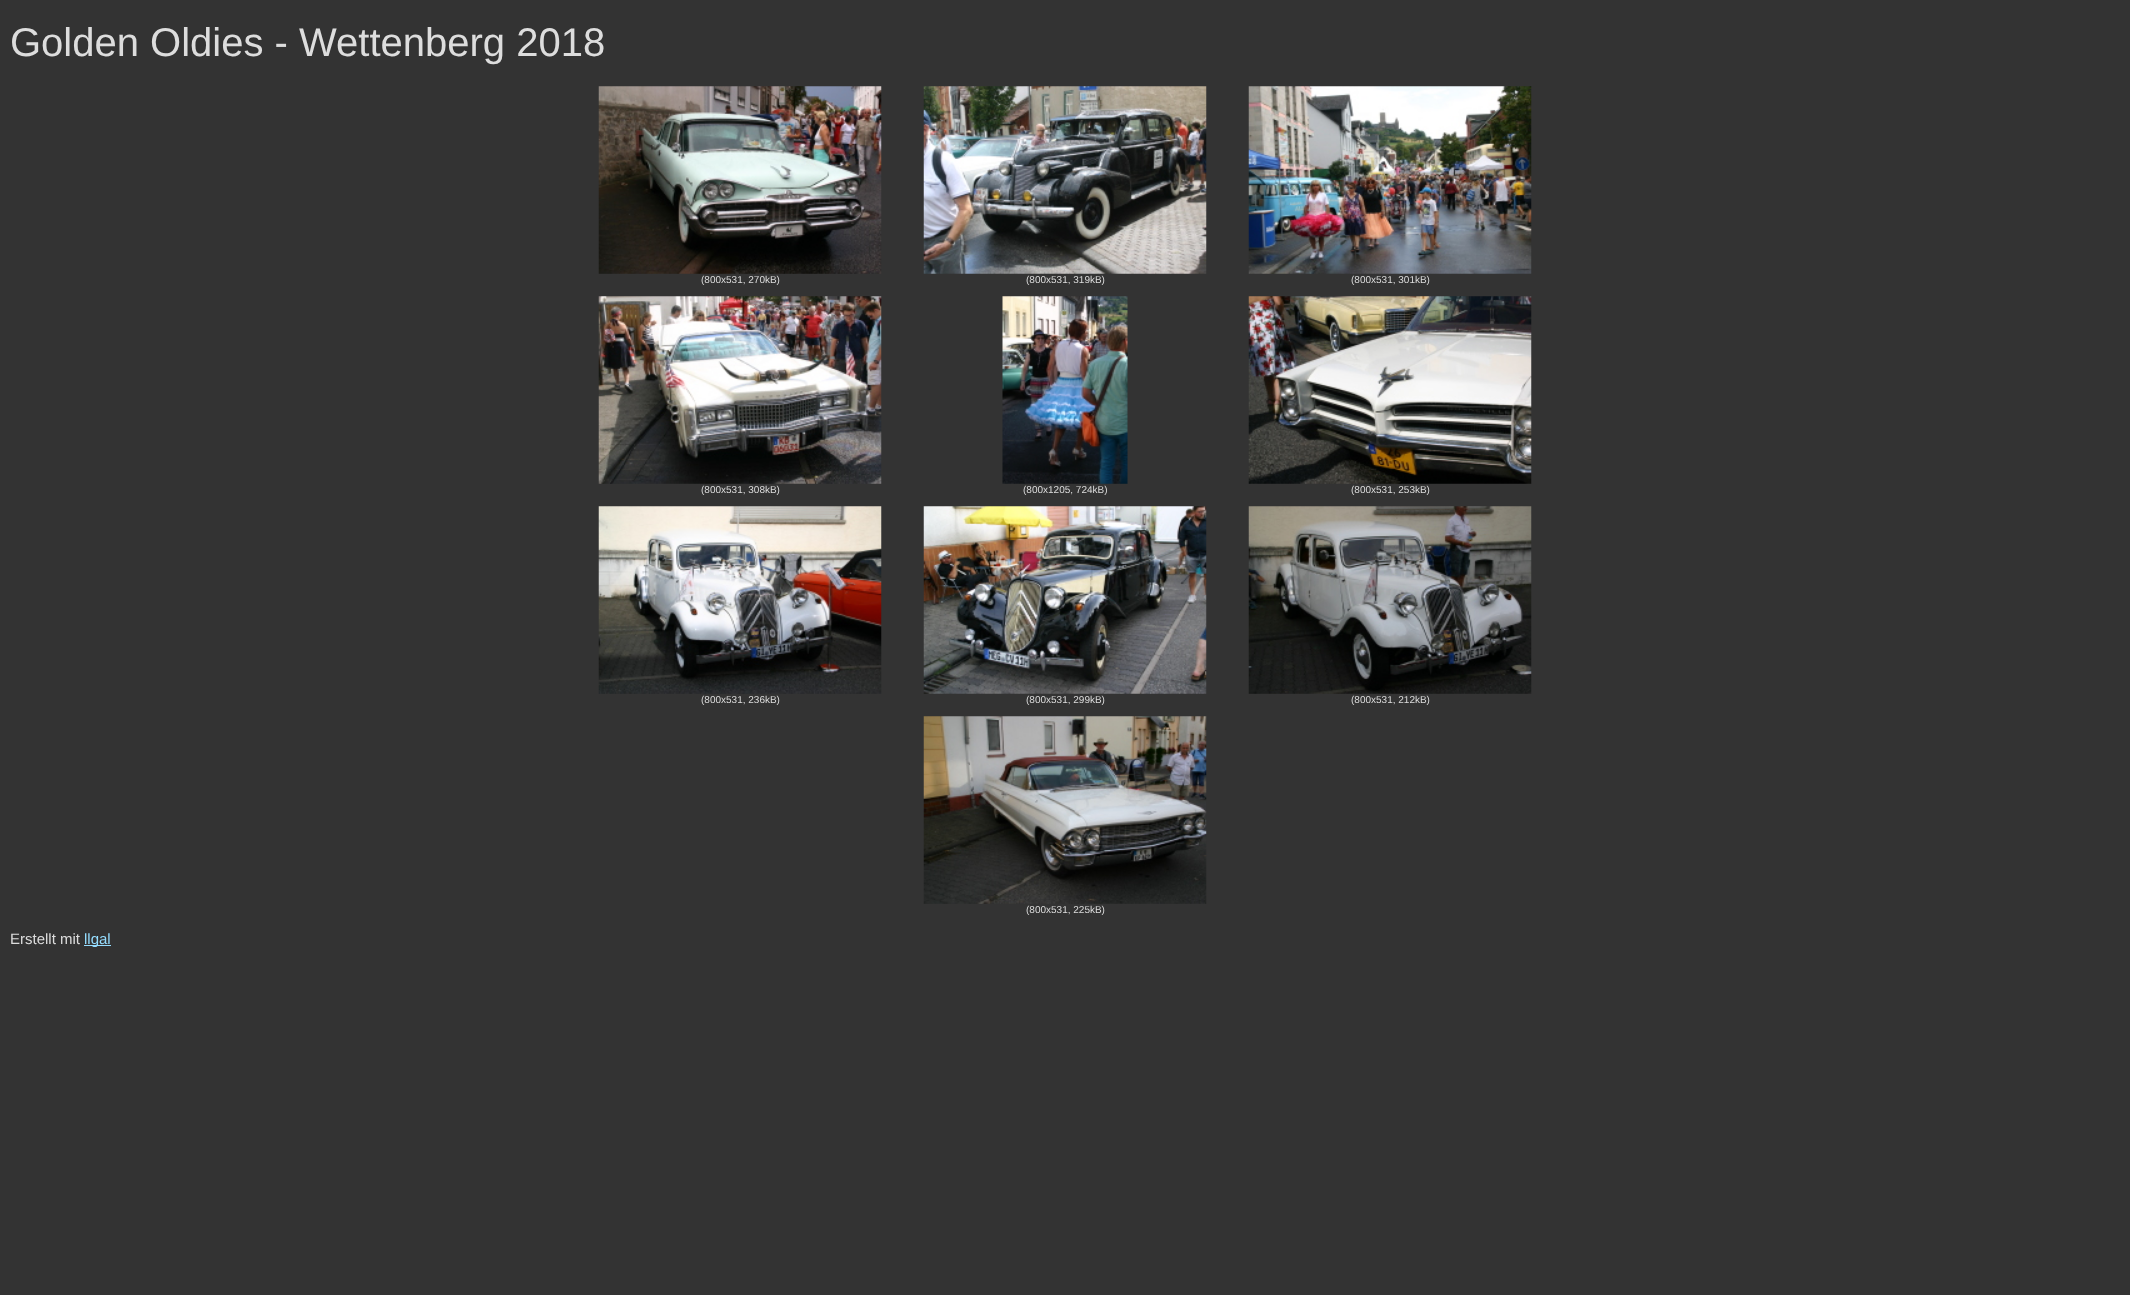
<!DOCTYPE html>
<meta charset="utf-8">
<style>body { margin: 0 } canvas { display: block }</style>
<canvas id="canvas" width="2130" height="1295"></canvas>
<script type="module">
  const canvas = document.getElementById("canvas");
  const ctx = canvas.getContext("2d");
  ctx.miterLimit = 4;
  ctx.fontKerning = "normal";
  async function loadImage(src) {
    const img = new Image();
    img.src = src;
    await img.decode();
    return img;
  }

  ctx.fillStyle = "#333333";
  ctx.fillRect(0, 0, 2130, 1295);
  ctx.font = "40px Liberation Sans";
  ctx.fillStyle = "#dddddd";
  ctx.fillText("Golden Oldies - Wettenberg 2018", 10, 56);
  ctx.drawImage(await loadImage("img1.png"), 598, 86, 284, 188);
  ctx.drawImage(await loadImage("img2.png"), 923, 86, 284, 188);
  ctx.drawImage(await loadImage("img3.png"), 1248, 86, 284, 188);
  ctx.font = "10px Liberation Sans";
  ctx.fillText("(800x531, 270kB)", 701, 283);
  ctx.fillText("(800x531, 319kB)", 1026, 283);
  ctx.fillText("(800x531, 301kB)", 1351, 283);
  ctx.drawImage(await loadImage("img4.png"), 598, 296, 284, 188);
  ctx.drawImage(await loadImage("img5.png"), 1002, 296, 126, 188);
  ctx.drawImage(await loadImage("img6.png"), 1248, 296, 284, 188);
  ctx.fillText("(800x531, 308kB)", 701, 493);
  ctx.fillText("(800x1205, 724kB)", 1023, 493);
  ctx.fillText("(800x531, 253kB)", 1351, 493);
  ctx.drawImage(await loadImage("img7.png"), 598, 506, 284, 188);
  ctx.drawImage(await loadImage("img8.png"), 923, 506, 284, 188);
  ctx.drawImage(await loadImage("img9.png"), 1248, 506, 284, 188);
  ctx.fillText("(800x531, 236kB)", 701, 703);
  ctx.fillText("(800x531, 299kB)", 1026, 703);
  ctx.fillText("(800x531, 212kB)", 1351, 703);
  ctx.drawImage(await loadImage("img10.png"), 923, 716, 284, 188);
  ctx.fillText("(800x531, 225kB)", 1026, 913);
  ctx.font = "15px Liberation Sans";
  ctx.fillText("Erstellt mit", 10, 944);
  ctx.fillStyle = "#95ddff";
  ctx.fillRect(84, 945, 27, 1);
  ctx.fillText("llgal", 84, 944);
</script>
